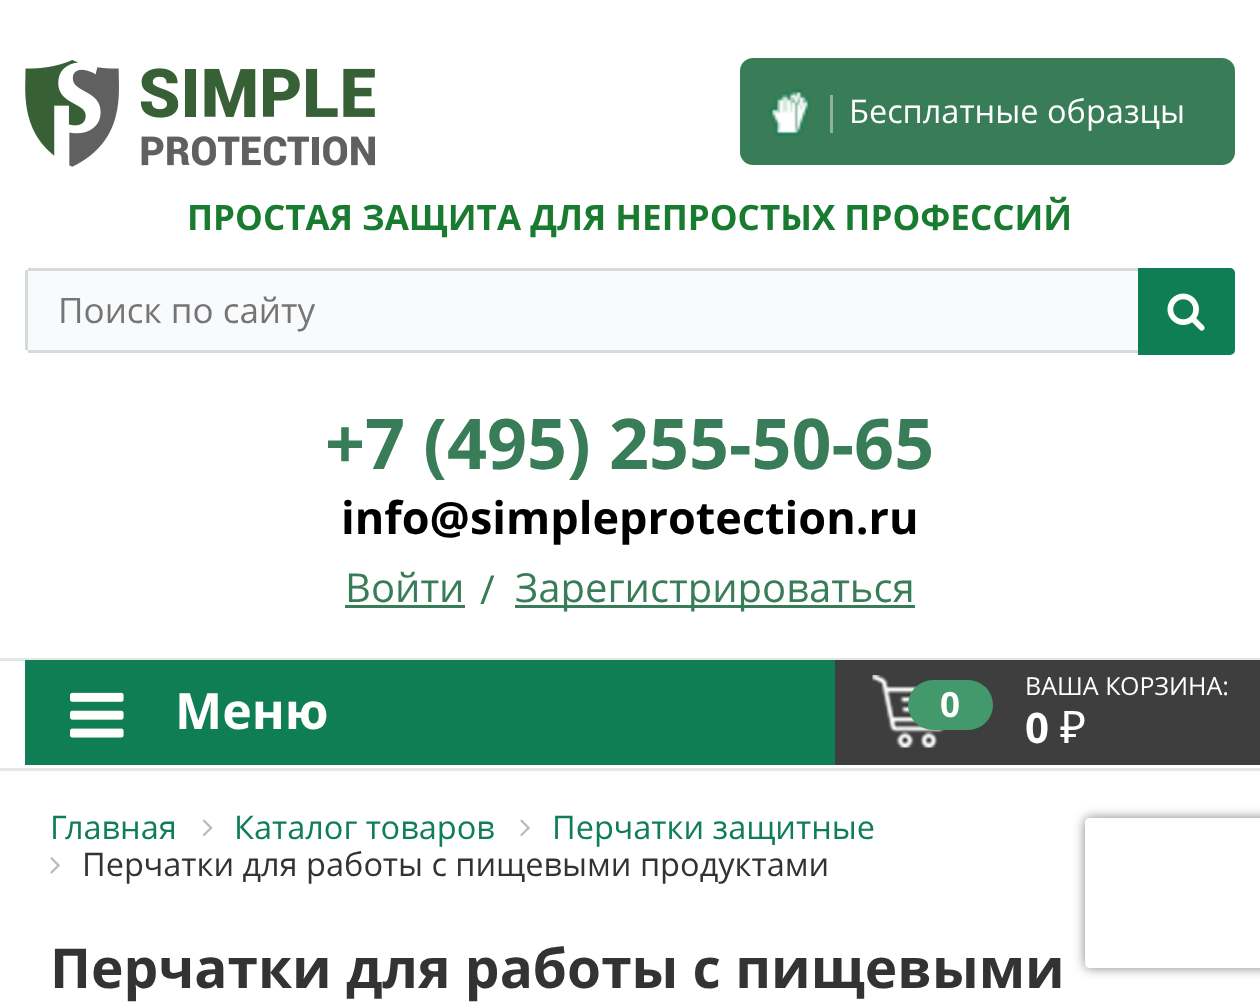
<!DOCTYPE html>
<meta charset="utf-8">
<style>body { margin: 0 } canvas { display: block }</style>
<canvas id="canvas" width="1260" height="1002"></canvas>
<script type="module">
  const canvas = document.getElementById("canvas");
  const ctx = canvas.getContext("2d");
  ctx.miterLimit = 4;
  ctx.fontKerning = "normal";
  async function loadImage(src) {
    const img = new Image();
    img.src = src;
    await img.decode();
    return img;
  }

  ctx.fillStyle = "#ffffff";
  ctx.fillRect(0, 0, 1260, 1002);
  ctx.drawImage(await loadImage("img1.png"), 25, 60, 350, 107);
  ctx.fillStyle = "#397c58";
  ctx.beginPath();
  ctx.roundRect(740, 58, 495, 107, 13);
  ctx.fill();
  ctx.drawImage(await loadImage("img2.png"), 769, 89, 42, 47);
  ctx.fillStyle = "#8fb19f";
  ctx.fillRect(830, 95, 3, 38);
  ctx.font = "32.5px Open Sans";
  ctx.fillStyle = "#ffffff";
  ctx.fillText("Бесплатные образцы", 849, 123);
  ctx.font = "bold 35px Open Sans";
  ctx.fillStyle = "#197b30";
  ctx.fillText("ПРОСТАЯ ЗАЩИТА ДЛЯ НЕПРОСТЫХ ПРОФЕССИЙ", 187, 230);
  ctx.fillStyle = "#f8fafc";
  ctx.beginPath();
  ctx.roundRect(25, 268, 1113, 85, [5, 0, 0, 5]);
  ctx.fill();
  ctx.fillStyle = "#d5dadc";
  ctx.fillRect(28, 268, 1110, 3);
  ctx.fillRect(28, 350, 1110, 3);
  ctx.fillRect(25, 270, 3, 80);
  ctx.font = "35px Open Sans";
  ctx.fillStyle = "#757575";
  ctx.fillText("Поиск по сайту", 58, 323);
  ctx.fillStyle = "#0f7e55";
  ctx.beginPath();
  ctx.roundRect(1138, 268, 97, 87, [0, 5, 5, 0]);
  ctx.fill();
  ctx.drawImage(await loadImage("img3.png"), 1167, 293, 38, 38);
  ctx.font = "bold 70px Open Sans";
  ctx.fillStyle = "#397c58";
  ctx.fillText("+7 (495) 255-50-65", 325, 469);
  ctx.font = "bold 45px Open Sans";
  ctx.fillStyle = "#000000";
  ctx.fillText("info@simpleprotection.ru", 341, 534);
  ctx.font = "40px Open Sans";
  ctx.fillStyle = "#397c58";
  ctx.fillText("Войти", 345, 602);
  ctx.fillRect(345, 605, 120, 3);
  ctx.fillText("/", 480, 604);
  ctx.fillRect(515, 605, 400, 3);
  ctx.fillText("Зарегистрироваться", 515, 602);
  ctx.fillStyle = "#e6e6e6";
  ctx.fillRect(0, 658, 1260, 3);
  ctx.fillRect(0, 768, 1260, 3);
  ctx.fillStyle = "#0f7e55";
  ctx.fillRect(25, 660, 810, 105);
  ctx.drawImage(await loadImage("img4.png"), 70, 692, 54, 46);
  ctx.font = "bold 50px Open Sans";
  ctx.fillStyle = "#ffffff";
  ctx.fillText("Меню", 175, 729);
  ctx.fillStyle = "#3e3e3e";
  ctx.fillRect(835, 660, 425, 105);
  ctx.drawImage(await loadImage("img5.png"), 872, 675, 72, 73);
  ctx.fillStyle = "#44996c";
  ctx.beginPath();
  ctx.roundRect(908, 680, 85, 50, 25);
  ctx.fill();
  ctx.font = "bold 35px Open Sans";
  ctx.fillStyle = "#ffffff";
  ctx.fillText("0", 940, 717);
  ctx.font = "25px Open Sans";
  ctx.fillText("ВАША КОРЗИНА:", 1025, 695);
  ctx.font = "bold 42px Open Sans";
  ctx.fillText("0", 1025, 743);
  ctx.font = "45px Noto Sans";
  ctx.fillText("₽", 1060, 743);
  ctx.font = "32.5px Open Sans";
  ctx.fillStyle = "#0f7e55";
  ctx.fillText("Главная", 50, 839);
  ctx.drawImage(await loadImage("img6.png"), 202, 819, 11, 18);
  ctx.fillText("Каталог товаров", 234, 839);
  ctx.drawImage(await loadImage("img7.png"), 520, 819, 10, 18);
  ctx.fillText("Перчатки защитные", 552, 839);
  ctx.drawImage(await loadImage("img8.png"), 50, 857, 10, 17);
  ctx.fillStyle = "#333333";
  ctx.fillText("Перчатки для работы с пищевыми продуктами", 82, 876);
  ctx.save();
  ctx.beginPath();
  ctx.moveTo(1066, 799);
  ctx.lineTo(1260, 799);
  ctx.lineTo(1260, 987);
  ctx.lineTo(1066, 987);
  ctx.closePath();
  ctx.moveTo(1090, 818);
  ctx.lineTo(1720, 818);
  ctx.bezierCurveTo(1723, 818, 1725, 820, 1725, 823);
  ctx.lineTo(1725, 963);
  ctx.bezierCurveTo(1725, 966, 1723, 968, 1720, 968);
  ctx.lineTo(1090, 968);
  ctx.bezierCurveTo(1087, 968, 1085, 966, 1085, 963);
  ctx.lineTo(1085, 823);
  ctx.bezierCurveTo(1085, 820, 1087, 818, 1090, 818);
  ctx.closePath();
  ctx.clip("evenodd");
  ctx.fillStyle = "#808080";
  ctx.filter = "blur(6px)";
  ctx.beginPath();
  ctx.roundRect(1085, 818, 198, 150, 5);
  ctx.fill();
  ctx.filter = "none";
  ctx.restore();
  ctx.font = "bold 55px Open Sans";
  ctx.fillText("Перчатки для работы с пищевыми", 50, 988);
</script>
